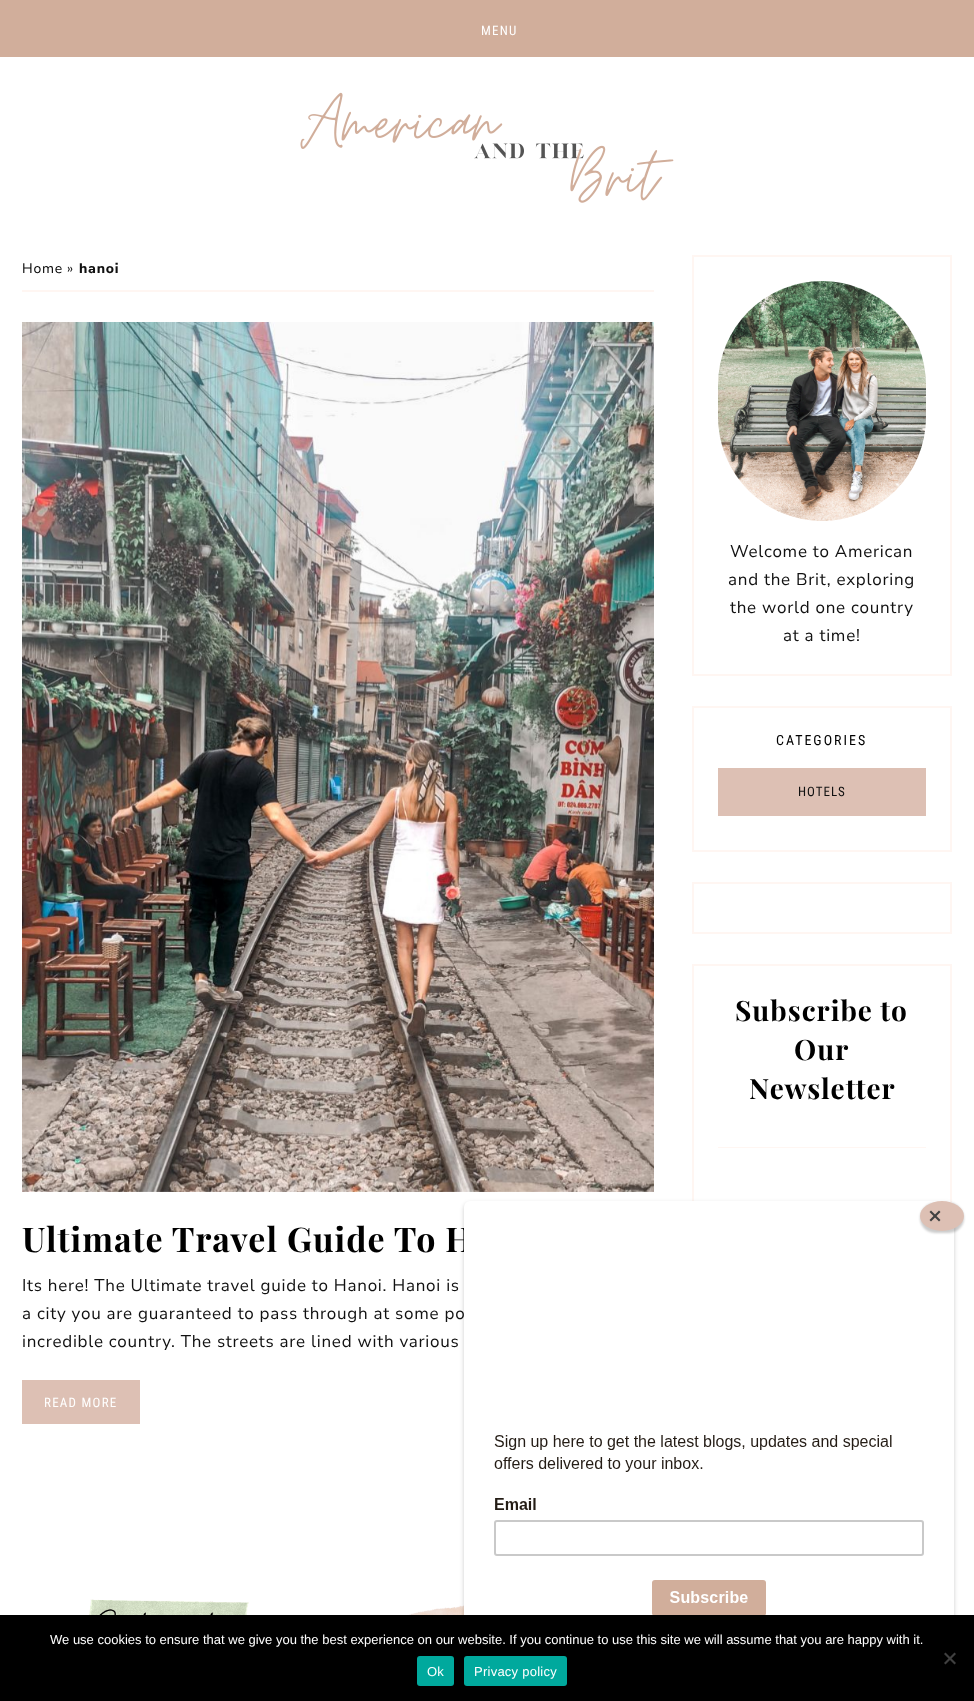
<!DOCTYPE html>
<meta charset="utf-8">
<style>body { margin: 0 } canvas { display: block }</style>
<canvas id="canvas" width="974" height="1701"></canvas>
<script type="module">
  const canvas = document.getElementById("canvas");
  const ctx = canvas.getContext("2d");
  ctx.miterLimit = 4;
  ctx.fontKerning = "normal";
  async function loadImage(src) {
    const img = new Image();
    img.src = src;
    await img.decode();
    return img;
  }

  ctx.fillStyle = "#ffffff";
  ctx.fillRect(0, 0, 974, 1701);
  ctx.fillStyle = "#d1ae9b";
  ctx.fillRect(0, 0, 974, 57);
  ctx.letterSpacing = "1.25px";
  ctx.font = "13px Roboto Condensed";
  ctx.fillStyle = "#ffffff";
  ctx.fillText("MENU", 481, 35);
  ctx.drawImage(await loadImage("img1.png"), 300, 92, 374, 111);
  ctx.fillStyle = "#fff6f2";
  ctx.fillRect(22, 290, 632, 2);
  ctx.letterSpacing = "0.75px";
  ctx.font = "14px Nunito Sans";
  ctx.fillStyle = "#000000";
  ctx.fillText("Home", 22, 273);
  ctx.fillStyle = "#111111";
  ctx.fillText("»", 67, 273);
  ctx.font = "800 14px Nunito Sans";
  ctx.fillText("hanoi", 79, 273);
  ctx.drawImage(await loadImage("img2.png"), 22, 322, 632, 870);
  ctx.letterSpacing = "1px";
  ctx.font = "bold 34px Playfair Display";
  ctx.fillStyle = "#000000";
  ctx.fillText("Ultimate Travel Guide To H", 22, 1252);
  ctx.letterSpacing = "0.75px";
  ctx.font = "17px Nunito Sans";
  ctx.fillStyle = "#111111";
  ctx.fillText("Its here! The Ultimate travel guide to Hanoi. Hanoi is", 22, 1291);
  ctx.fillText("a city you are guaranteed to pass through at some po", 22, 1319);
  ctx.fillText("incredible country. The streets are lined with various", 22, 1347);
  ctx.fillStyle = "#ddc0b4";
  ctx.fillRect(22, 1380, 118, 44);
  ctx.letterSpacing = "1.25px";
  ctx.font = "13px Roboto Condensed";
  ctx.fillStyle = "#ffffff";
  ctx.fillText("READ MORE", 44, 1407);
  ctx.strokeStyle = "#fff6f2";
  ctx.lineWidth = 2;
  ctx.strokeRect(693, 256, 258, 419);
  ctx.drawImage(await loadImage("img3.png"), 718, 281, 208, 240);
  ctx.letterSpacing = "0.75px";
  ctx.font = "17px Nunito Sans";
  ctx.fillStyle = "#111111";
  ctx.fillText("Welcome to American", 730, 557);
  ctx.fillText("and the Brit, exploring", 728, 585);
  ctx.fillText("the world one country", 730, 613);
  ctx.fillText("at a time!", 783, 641);
  ctx.strokeRect(693, 707, 258, 144);
  ctx.letterSpacing = "2px";
  ctx.font = "14px Roboto Condensed";
  ctx.fillStyle = "#000000";
  ctx.fillText("CATEGORIES", 776, 745);
  ctx.fillStyle = "#ddc0b4";
  ctx.fillRect(718, 768, 208, 48);
  ctx.letterSpacing = "1px";
  ctx.font = "13px Roboto Condensed";
  ctx.fillStyle = "#111111";
  ctx.fillText("HOTELS", 798, 796);
  ctx.strokeRect(693, 883, 258, 50);
  ctx.strokeRect(693, 965, 258, 563);
  ctx.font = "bold 28px Playfair Display";
  ctx.fillStyle = "#000000";
  ctx.fillText("Subscribe to", 735, 1021);
  ctx.fillText("Our", 794, 1060);
  ctx.fillText("Newsletter", 749, 1099);
  ctx.fillStyle = "#fff6f2";
  ctx.fillRect(718, 1147, 208, 1);
  ctx.drawImage(await loadImage("img4.png"), 88, 1599, 161, 16);
  ctx.drawImage(await loadImage("img5.png"), 407, 1605, 57, 10);
  ctx.fillStyle = "rgba(0, 0, 0, 0.2)";
  ctx.filter = "blur(2px)";
  ctx.beginPath();
  ctx.roundRect(464, 1203, 490, 480, 6);
  ctx.fill();
  ctx.filter = "none";
  ctx.fillStyle = "#ffffff";
  ctx.beginPath();
  ctx.roundRect(464, 1201, 490, 480, 6);
  ctx.fill();
  ctx.drawImage(await loadImage("img6.png"), 464, 1435, 487, 180);
  ctx.fillStyle = "rgba(0, 0, 0, 0.2)";
  ctx.filter = "blur(1px)";
  ctx.beginPath();
  ctx.roundRect(920, 1203, 44, 30, 15);
  ctx.fill();
  ctx.filter = "none";
  ctx.fillStyle = "#ddc0b4";
  ctx.beginPath();
  ctx.ellipse(942, 1216, 22, 15, 0, 0, Math.PI * 2);
  ctx.fill();
  ctx.fillStyle = "#414141";
  ctx.beginPath();
  ctx.moveTo(939, 1210.5);
  ctx.lineTo(940.5, 1212);
  ctx.lineTo(931, 1221.5);
  ctx.lineTo(929.5, 1220);
  ctx.closePath();
  ctx.fill();
  ctx.beginPath();
  ctx.moveTo(929.5, 1212);
  ctx.lineTo(931, 1210.5);
  ctx.lineTo(940.5, 1220);
  ctx.lineTo(939, 1221.5);
  ctx.closePath();
  ctx.fill();
  ctx.fillStyle = "#000000";
  ctx.fillRect(0, 1615, 974, 86);
  ctx.letterSpacing = "0px";
  ctx.font = "13px Liberation Sans";
  ctx.fillStyle = "#ffffff";
  ctx.fillText("We use cookies to ensure that we give you the best experience on our website. If you continue to use this site we will assume that you are happy with it.", 50, 1644);
  ctx.fillStyle = "#404040";
  ctx.beginPath();
  ctx.moveTo(954.5, 1652.5);
  ctx.lineTo(956, 1654);
  ctx.lineTo(945.5, 1664.5);
  ctx.lineTo(944, 1663);
  ctx.closePath();
  ctx.fill();
  ctx.beginPath();
  ctx.moveTo(944, 1654);
  ctx.lineTo(945.5, 1652.5);
  ctx.lineTo(956, 1663);
  ctx.lineTo(954.5, 1664.5);
  ctx.closePath();
  ctx.fill();
  ctx.fillStyle = "#00a99d";
  ctx.beginPath();
  ctx.roundRect(417, 1656, 37, 30, 3);
  ctx.fill();
  ctx.letterSpacing = "0.25px";
  ctx.fillStyle = "#ffffff";
  ctx.fillText("Ok", 427, 1676);
  ctx.fillStyle = "#00a99d";
  ctx.beginPath();
  ctx.roundRect(464, 1656, 103, 30, 3);
  ctx.fill();
  ctx.fillStyle = "#ffffff";
  ctx.fillText("Privacy policy", 474, 1676);
</script>
